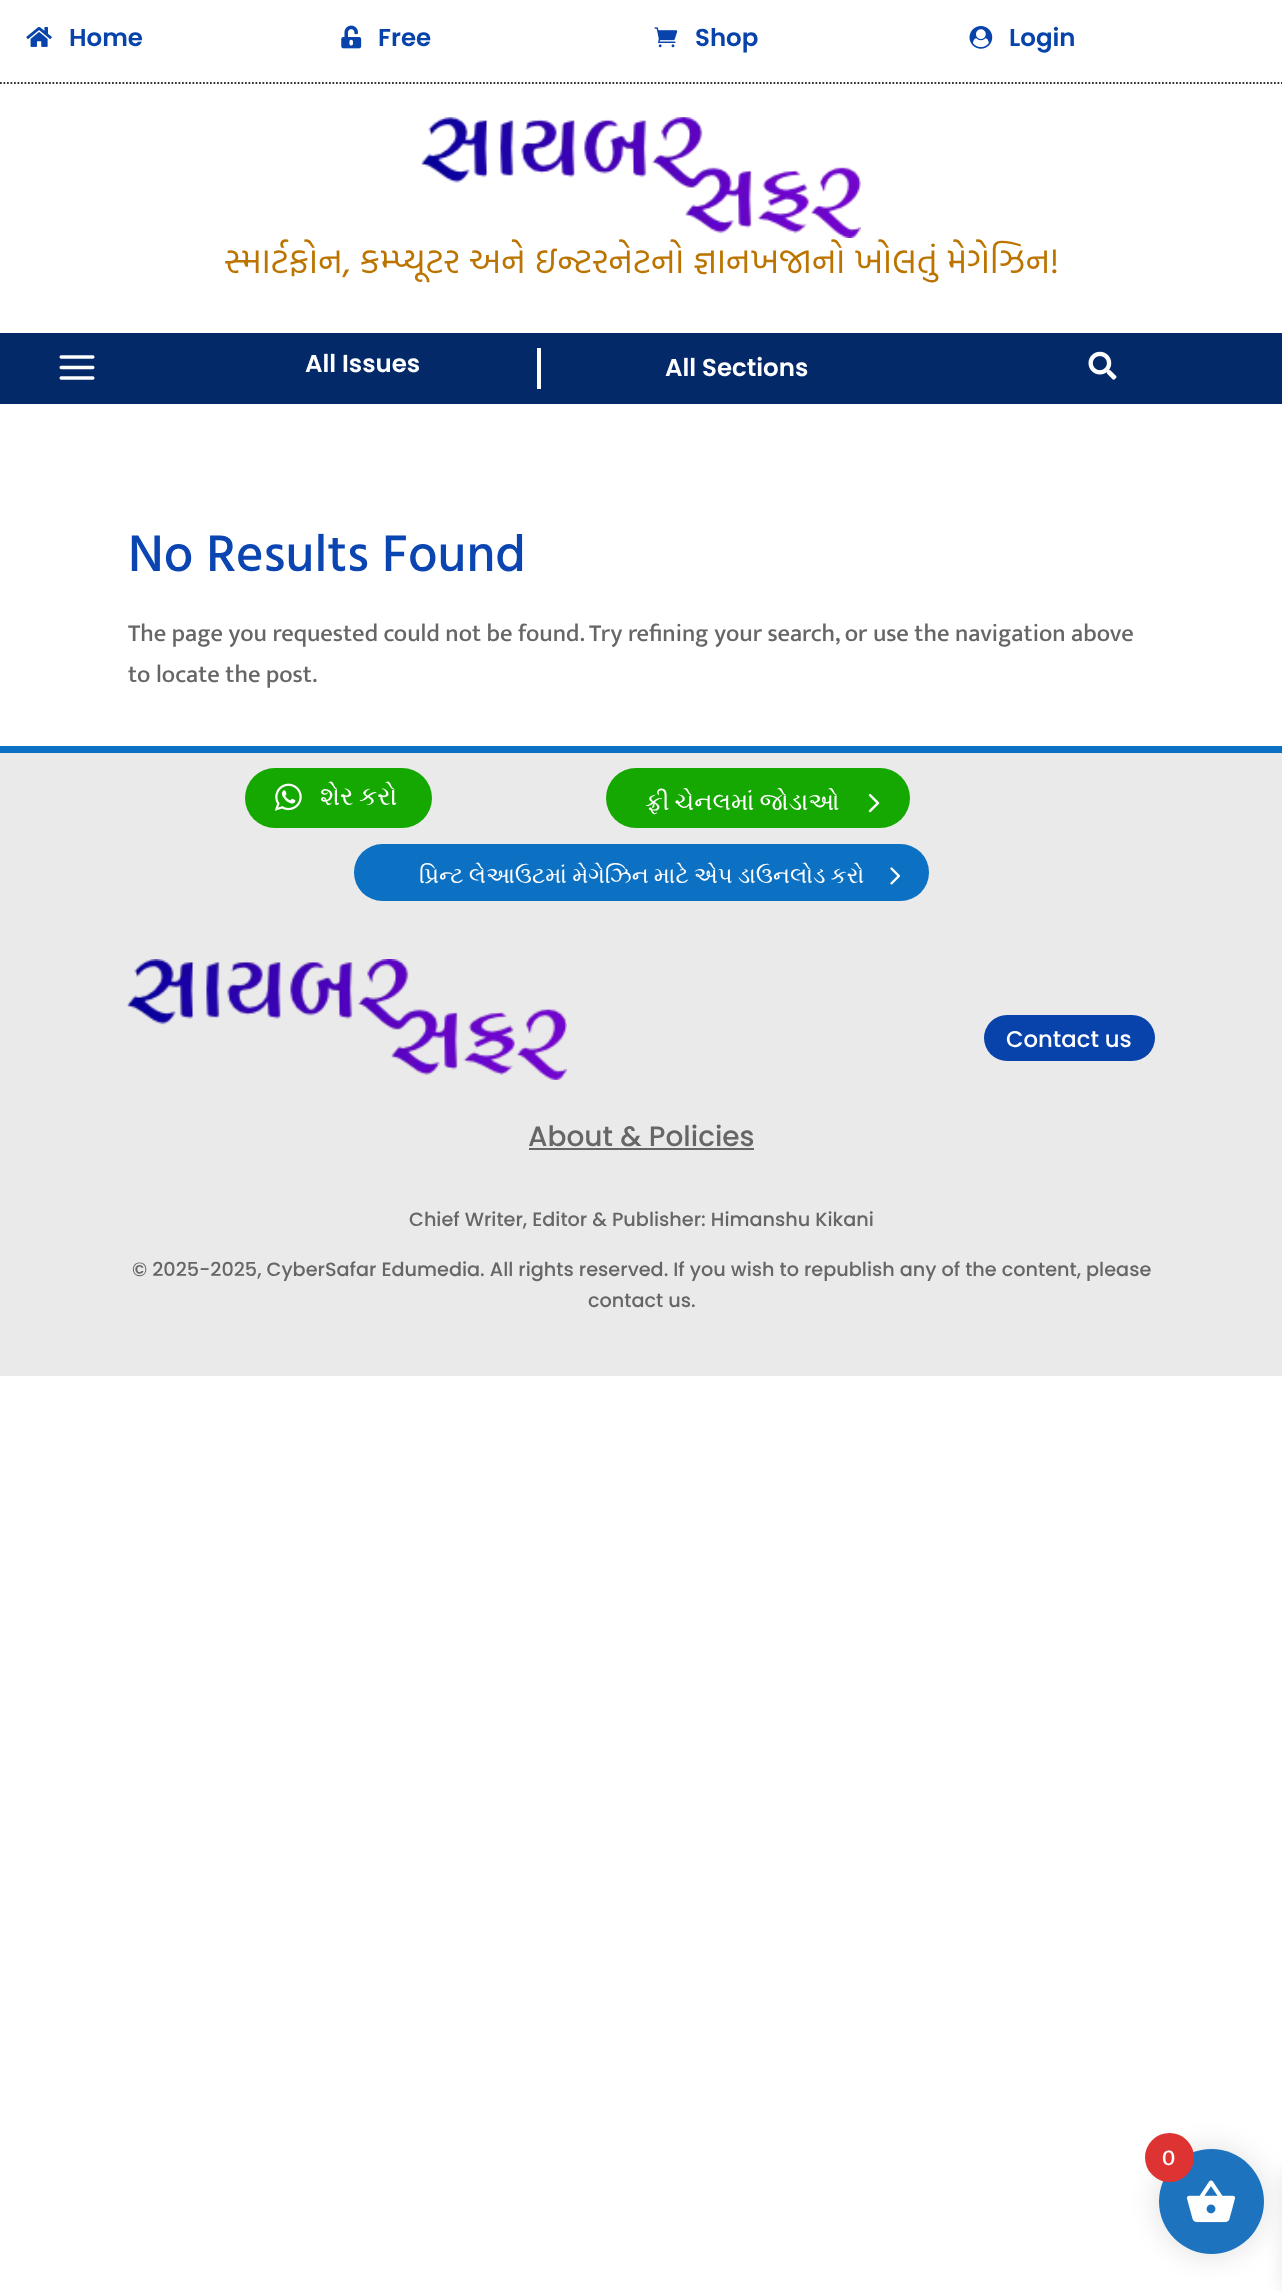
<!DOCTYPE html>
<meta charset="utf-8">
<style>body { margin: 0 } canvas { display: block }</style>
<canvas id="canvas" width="1282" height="2291"></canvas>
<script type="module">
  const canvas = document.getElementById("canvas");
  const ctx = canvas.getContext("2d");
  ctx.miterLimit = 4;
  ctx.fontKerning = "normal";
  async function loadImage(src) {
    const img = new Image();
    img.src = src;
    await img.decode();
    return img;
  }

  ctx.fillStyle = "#ffffff";
  ctx.fillRect(0, 0, 1282, 2291);
  ctx.beginPath();
  ctx.moveTo(0, 83);
  ctx.lineTo(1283, 83);
  ctx.strokeStyle = "#333333";
  ctx.lineWidth = 1.8;
  ctx.setLineDash([1.75, 1.75]);
  ctx.stroke();
  ctx.drawImage(await loadImage("img1.png"), 26, 27, 26, 20);
  ctx.font = "600 24.5px Poppins";
  ctx.fillStyle = "#0743aa";
  ctx.fillText("Home", 69, 46);
  ctx.drawImage(await loadImage("img2.png"), 341, 25, 21, 24);
  ctx.fillText("Free", 378, 46);
  ctx.drawImage(await loadImage("img3.png"), 654, 27, 24, 21);
  ctx.fillText("Shop", 695, 46);
  ctx.drawImage(await loadImage("img4.png"), 969, 26, 24, 23);
  ctx.fillText("Login", 1009, 46);
  ctx.drawImage(await loadImage("img5.png"), 421, 117, 440, 121);
  ctx.wordSpacing = "0.5px";
  ctx.font = "35px Hind Vadodara";
  ctx.fillStyle = "#bc7400";
  ctx.fillText("સ્માર્ટફોન, કમ્પ્યૂટર અને ઇન્ટરનેટનો જ્ઞાનખજાનો ખોલતું મેગેઝિન!", 224, 273);
  ctx.fillStyle = "#032969";
  ctx.fillRect(0, 333, 1282, 71);
  ctx.drawImage(await loadImage("img6.png"), 59, 355, 36, 25);
  ctx.fillStyle = "#ffffff";
  ctx.fillRect(537, 348, 4, 41);
  ctx.wordSpacing = "0px";
  ctx.font = "600 24.5px Poppins";
  ctx.fillText("All Issues", 305, 372);
  ctx.fillText("All Sections", 665, 376);
  ctx.drawImage(await loadImage("img7.png"), 1088, 351, 29, 29);
  ctx.font = "500 52.5px Hind Vadodara";
  ctx.fillStyle = "#0a45b2";
  ctx.fillText("No Results Found", 128, 571);
  ctx.font = "500 24.5px Mukta Vaani";
  ctx.fillStyle = "#666666";
  ctx.fillText("The page you requested could not be found. Try refining your search, or use the navigation above", 128, 641);
  ctx.fillText("to locate the post.", 128, 682);
  ctx.fillStyle = "#eaeaea";
  ctx.fillRect(0, 753, 1282, 623);
  ctx.fillStyle = "#0c71c3";
  ctx.fillRect(0, 746, 1282, 7);
  ctx.fillStyle = "#14a800";
  ctx.beginPath();
  ctx.roundRect(245, 768, 187, 60, 30);
  ctx.fill();
  ctx.drawImage(await loadImage("img8.png"), 274, 783, 28, 28);
  ctx.wordSpacing = "-1px";
  ctx.font = "26px FreeSerif";
  ctx.fillStyle = "#ffffff";
  ctx.fillText("શેર કરો", 320, 805);
  ctx.fillStyle = "#14a800";
  ctx.beginPath();
  ctx.roundRect(606, 768, 304, 60, 30);
  ctx.fill();
  ctx.font = "24.5px FreeSerif";
  ctx.fillStyle = "#ffffff";
  ctx.fillText("ફ્રી ચેનલમાં જોડાઓ", 645, 810);
  ctx.drawImage(await loadImage("img9.png"), 868, 793, 12, 20);
  ctx.fillStyle = "#0c71c3";
  ctx.beginPath();
  ctx.roundRect(354, 844, 575, 57, 28.5);
  ctx.fill();
  ctx.wordSpacing = "-0.5px";
  ctx.font = "22.75px FreeSerif";
  ctx.fillStyle = "#ffffff";
  ctx.fillText("પ્રિન્ટ લેઆઉટમાં મેગેઝિન માટે એપ ડાઉનલોડ કરો", 419, 883);
  ctx.drawImage(await loadImage("img10.png"), 890, 867, 10, 18);
  ctx.drawImage(await loadImage("img11.png"), 127, 959, 440, 121);
  ctx.fillStyle = "#0743aa";
  ctx.beginPath();
  ctx.roundRect(984, 1015, 171, 46, 23);
  ctx.fill();
  ctx.wordSpacing = "0px";
  ctx.font = "500 22.75px Poppins";
  ctx.fillStyle = "#ffffff";
  ctx.fillText("Contact us", 1006, 1047);
  ctx.font = "500 28px Poppins";
  ctx.fillStyle = "#666666";
  ctx.fillText("About & Policies", 528, 1146);
  ctx.fillRect(529, 1148, 225, 2);
  ctx.font = "500 19.25px Poppins";
  ctx.fillText("Chief Writer, Editor & Publisher: Himanshu Kikani", 409, 1226);
  ctx.fillText("© 2025-2025, CyberSafar Edumedia. All rights reserved. If you wish to republish any of the content, please", 132, 1276);
  ctx.fillText("contact us.", 588, 1307);
  ctx.fillStyle = "rgba(0, 0, 0, 0.1)";
  ctx.filter = "blur(13px)";
  ctx.beginPath();
  ctx.roundRect(1155, 2146, 112, 112, 56);
  ctx.fill();
  ctx.filter = "none";
  ctx.filter = "blur(9px)";
  ctx.beginPath();
  ctx.rect(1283, 2172, 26, 119);
  ctx.fill();
  ctx.filter = "none";
  ctx.fillStyle = "#1e73be";
  ctx.beginPath();
  ctx.arc(1211.5, 2201.5, 52.5, 0, Math.PI * 2);
  ctx.fill();
  ctx.drawImage(await loadImage("img12.png"), 1186, 2180, 50, 43);
  ctx.fillStyle = "#dd3333";
  ctx.beginPath();
  ctx.arc(1169.5, 2157.5, 24.5, 0, Math.PI * 2);
  ctx.fill();
  ctx.font = "500 22.75px Mukta Vaani";
  ctx.fillStyle = "#ffffff";
  ctx.fillText("0", 1162, 2165);
</script>
